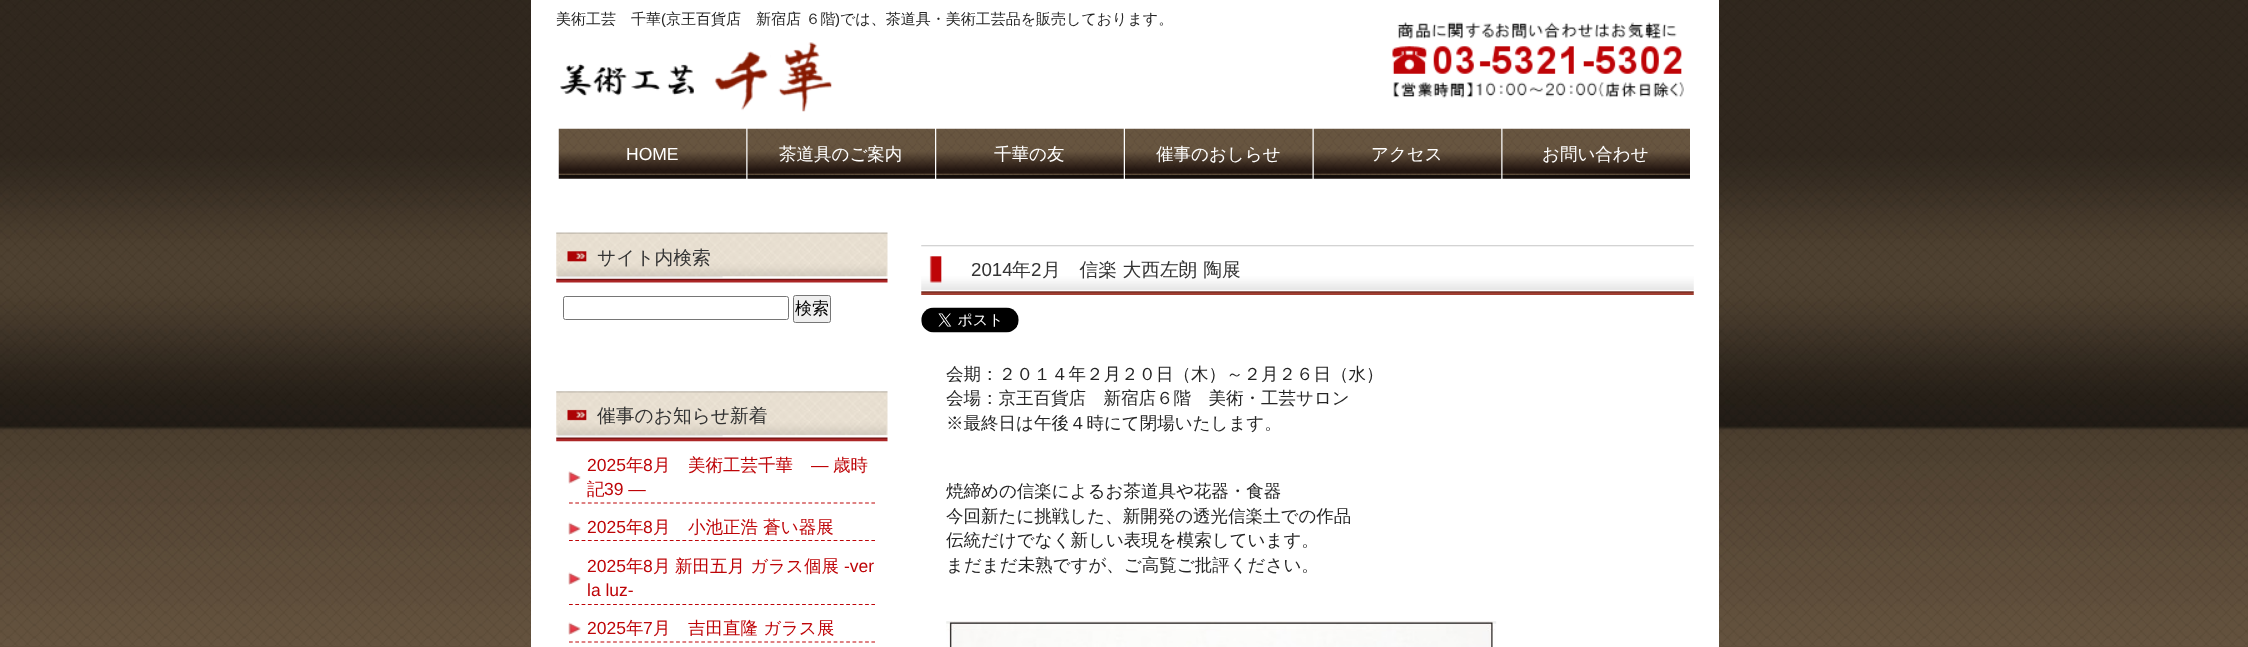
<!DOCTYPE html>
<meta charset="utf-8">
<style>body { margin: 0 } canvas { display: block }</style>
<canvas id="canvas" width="2248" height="647"></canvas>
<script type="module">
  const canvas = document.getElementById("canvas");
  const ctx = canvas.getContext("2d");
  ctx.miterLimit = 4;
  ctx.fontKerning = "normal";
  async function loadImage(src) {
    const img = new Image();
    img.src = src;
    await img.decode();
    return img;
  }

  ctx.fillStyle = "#604e3b";
  ctx.fillRect(0, 0, 2248, 647);
  ctx.drawImage(await loadImage("img1.png"), 0, 0, 2248, 646);
  ctx.fillStyle = "#ffffff";
  ctx.fillRect(531, 0, 1188, 647);
  ctx.drawImage(await loadImage("img2.png"), 1392, 22, 292, 76);
  ctx.font = "500 15px WenQuanYi Zen Hei";
  ctx.fillStyle = "#252525";
  ctx.fillText("美術工芸　千華", 556, 24);
  ctx.font = "15px Liberation Sans";
  ctx.fillText("(", 661, 24);
  ctx.font = "500 15px WenQuanYi Zen Hei";
  ctx.fillText("京王百貨店　新宿店 ６階", 666, 24);
  ctx.font = "15px Liberation Sans";
  ctx.fillText(")", 835, 24);
  ctx.font = "500 15px WenQuanYi Zen Hei";
  ctx.fillText("では、茶道具・美術工芸品を販売しております。", 840, 24);
  ctx.drawImage(await loadImage("img3.png"), 560, 42, 272, 70);
  ctx.drawImage(await loadImage("img4.png"), 558, 128, 189, 51);
  ctx.font = "17.5px Liberation Sans";
  ctx.fillStyle = "#ffffff";
  ctx.fillText("HOME", 626, 160);
  ctx.drawImage(await loadImage("img5.png"), 747, 128, 188, 51);
  ctx.font = "500 17.5px WenQuanYi Zen Hei";
  ctx.fillText("茶道具のご案内", 779, 160);
  ctx.drawImage(await loadImage("img6.png"), 936, 128, 188, 51);
  ctx.fillText("千華の友", 994, 160);
  ctx.drawImage(await loadImage("img7.png"), 1125, 128, 188, 51);
  ctx.fillText("催事のおしらせ", 1156, 160);
  ctx.drawImage(await loadImage("img8.png"), 1313, 128, 189, 51);
  ctx.fillText("アクセス", 1371, 160);
  ctx.drawImage(await loadImage("img9.png"), 1502, 128, 188, 51);
  ctx.fillText("お問い合わせ", 1542, 160);
  ctx.drawImage(await loadImage("img10.png"), 556, 232, 332, 51);
  ctx.font = "500 18.75px WenQuanYi Zen Hei";
  ctx.fillStyle = "#333333";
  ctx.fillText("サイト内検索", 597, 264);
  ctx.beginPath();
  ctx.roundRect(563.5, 296.5, 225, 23, 2);
  ctx.strokeStyle = "#767676";
  ctx.stroke();
  ctx.fillStyle = "#efefef";
  ctx.beginPath();
  ctx.roundRect(793.5, 295.5, 37, 27, 2);
  ctx.fill();
  ctx.stroke();
  ctx.font = "500 17px WenQuanYi Zen Hei";
  ctx.fillStyle = "#000000";
  ctx.fillText("検索", 795, 314);
  ctx.drawImage(await loadImage("img11.png"), 556, 391, 332, 51);
  ctx.font = "500 18.75px WenQuanYi Zen Hei";
  ctx.fillStyle = "#333333";
  ctx.fillText("催事のお知らせ新着", 597, 422);
  ctx.beginPath();
  ctx.moveTo(569, 503);
  ctx.lineTo(875, 503);
  ctx.strokeStyle = "#be0407";
  ctx.lineWidth = 1.2;
  ctx.setLineDash([3.75, 2.55]);
  ctx.stroke();
  ctx.drawImage(await loadImage("img12.png"), 568, 471, 13, 13);
  ctx.font = "17.5px Liberation Sans";
  ctx.fillStyle = "#be0407";
  ctx.fillText("2025", 587, 471);
  ctx.font = "500 17.5px WenQuanYi Zen Hei";
  ctx.fillText("年", 626, 471);
  ctx.font = "17.5px Liberation Sans";
  ctx.fillText("8", 643, 471);
  ctx.font = "500 17.5px WenQuanYi Zen Hei";
  ctx.fillText("月　美術工芸千華", 653, 471);
  ctx.font = "17.5px Liberation Sans";
  ctx.fillText("―", 811, 471);
  ctx.font = "500 17.5px WenQuanYi Zen Hei";
  ctx.fillText("歳時", 833, 471);
  ctx.fillText("記", 587, 495);
  ctx.font = "17.5px Liberation Sans";
  ctx.fillText("39 ―", 604, 495);
  ctx.beginPath();
  ctx.moveTo(569, 540.5);
  ctx.lineTo(875, 540.5);
  ctx.stroke();
  ctx.drawImage(await loadImage("img13.png"), 568, 522, 13, 13);
  ctx.fillText("2025", 587, 533);
  ctx.font = "500 17.5px WenQuanYi Zen Hei";
  ctx.fillText("年", 626, 533);
  ctx.font = "17.5px Liberation Sans";
  ctx.fillText("8", 643, 533);
  ctx.font = "500 17.5px WenQuanYi Zen Hei";
  ctx.fillText("月　小池正浩 蒼い器展", 653, 533);
  ctx.beginPath();
  ctx.moveTo(569, 604.5);
  ctx.lineTo(875, 604.5);
  ctx.stroke();
  ctx.drawImage(await loadImage("img13.png"), 568, 572, 13, 13);
  ctx.font = "17.5px Liberation Sans";
  ctx.fillText("2025", 587, 572);
  ctx.font = "500 17.5px WenQuanYi Zen Hei";
  ctx.fillText("年", 626, 572);
  ctx.font = "17.5px Liberation Sans";
  ctx.fillText("8", 643, 572);
  ctx.font = "500 17.5px WenQuanYi Zen Hei";
  ctx.fillText("月", 653, 572);
  ctx.fillText("新田五月 ガラス個展", 675, 572);
  ctx.font = "17.5px Liberation Sans";
  ctx.fillText("-ver", 844, 572);
  ctx.fillText("la luz-", 587, 596);
  ctx.beginPath();
  ctx.moveTo(569, 642);
  ctx.lineTo(875, 642);
  ctx.stroke();
  ctx.drawImage(await loadImage("img13.png"), 568, 622, 13, 13);
  ctx.fillText("2025", 587, 634);
  ctx.font = "500 17.5px WenQuanYi Zen Hei";
  ctx.fillText("年", 626, 634);
  ctx.font = "17.5px Liberation Sans";
  ctx.fillText("7", 643, 634);
  ctx.font = "500 17.5px WenQuanYi Zen Hei";
  ctx.fillText("月　吉田直隆 ガラス展", 653, 634);
  ctx.drawImage(await loadImage("img14.png"), 921, 245, 773, 50);
  ctx.font = "18.75px Liberation Sans";
  ctx.fillStyle = "#333333";
  ctx.fillText("2014", 971, 276);
  ctx.font = "500 18.75px WenQuanYi Zen Hei";
  ctx.fillText("年", 1012, 276);
  ctx.font = "18.75px Liberation Sans";
  ctx.fillText("2", 1031, 276);
  ctx.font = "500 18.75px WenQuanYi Zen Hei";
  ctx.fillText("月　信楽 大西左朗 陶展", 1042, 276);
  ctx.drawImage(await loadImage("img15.png"), 921, 307, 98, 26);
  ctx.font = "500 17.5px WenQuanYi Zen Hei";
  ctx.fillStyle = "#252525";
  ctx.fillText("会期：２０１４年２月２０日（木）～２月２６日（水）", 946, 380);
  ctx.fillText("会場：京王百貨店　新宿店６階　美術・工芸サロン", 946, 404);
  ctx.fillText("※最終日は午後４時にて閉場いたします。", 946, 429);
  ctx.fillText("焼締めの信楽によるお茶道具や花器・食器", 946, 497);
  ctx.fillText("今回新たに挑戦した、新開発の透光信楽土での作品", 946, 522);
  ctx.fillText("伝統だけでなく新しい表現を模索しています。", 946, 546);
  ctx.fillText("まだまだ未熟ですが、ご高覧ご批評ください。", 946, 571);
  ctx.drawImage(await loadImage("img16.png"), 946, 621, 551, 26);
</script>
